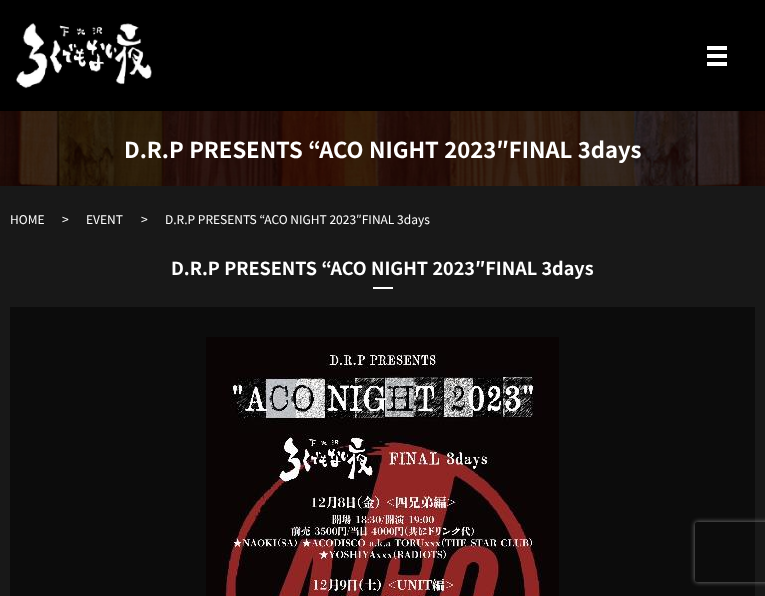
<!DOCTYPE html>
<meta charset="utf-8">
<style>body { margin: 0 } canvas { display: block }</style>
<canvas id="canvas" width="765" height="596"></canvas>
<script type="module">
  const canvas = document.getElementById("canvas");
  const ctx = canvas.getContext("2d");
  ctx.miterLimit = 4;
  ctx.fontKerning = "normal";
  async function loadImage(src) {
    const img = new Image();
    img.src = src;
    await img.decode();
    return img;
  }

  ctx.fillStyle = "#181818";
  ctx.fillRect(0, 0, 765, 596);
  ctx.fillStyle = "#000000";
  ctx.fillRect(0, 0, 765, 111);
  ctx.drawImage(await loadImage("img1.png"), 16, 23, 136, 66);
  ctx.fillStyle = "#ffffff";
  ctx.fillRect(707, 46, 20, 4);
  ctx.fillRect(707, 54, 20, 4);
  ctx.fillRect(707, 62, 20, 4);
  ctx.drawImage(await loadImage("img2.png"), 0, 111, 765, 75);
  ctx.wordSpacing = "0.5px";
  ctx.font = "bold 22px Noto Sans JP";
  ctx.fillText("D.R.P PRESENTS “ACO NIGHT 2023″FINAL 3days", 124, 158);
  ctx.wordSpacing = "0px";
  ctx.font = "12px Noto Sans JP";
  ctx.fillText("HOME", 10, 224);
  ctx.fillText(">", 62, 224);
  ctx.fillText("EVENT", 86, 224);
  ctx.fillText(">", 141, 224);
  ctx.fillText("D.R.P PRESENTS “ACO NIGHT 2023″FINAL 3days", 165, 224);
  ctx.wordSpacing = "0.25px";
  ctx.font = "bold 18px Noto Sans JP";
  ctx.fillText("D.R.P PRESENTS “ACO NIGHT 2023″FINAL 3days", 171, 275);
  ctx.fillRect(373, 287, 20, 2);
  ctx.fillStyle = "#0c0c0c";
  ctx.fillRect(10, 307, 745, 289);
  ctx.drawImage(await loadImage("img3.png"), 206, 337, 353, 259);
  ctx.save();
  ctx.beginPath();
  ctx.moveTo(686, 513);
  ctx.lineTo(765, 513);
  ctx.lineTo(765, 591);
  ctx.lineTo(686, 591);
  ctx.closePath();
  ctx.moveTo(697, 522);
  ctx.lineTo(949, 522);
  ctx.bezierCurveTo(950, 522, 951, 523, 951, 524);
  ctx.lineTo(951, 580);
  ctx.bezierCurveTo(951, 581, 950, 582, 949, 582);
  ctx.lineTo(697, 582);
  ctx.bezierCurveTo(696, 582, 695, 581, 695, 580);
  ctx.lineTo(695, 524);
  ctx.bezierCurveTo(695, 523, 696, 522, 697, 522);
  ctx.closePath();
  ctx.clip("evenodd");
  ctx.fillStyle = "#808080";
  ctx.filter = "blur(2.5px)";
  ctx.beginPath();
  ctx.roundRect(695, 522, 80, 60, 2);
  ctx.fill();
  ctx.filter = "none";
  ctx.restore();
</script>
